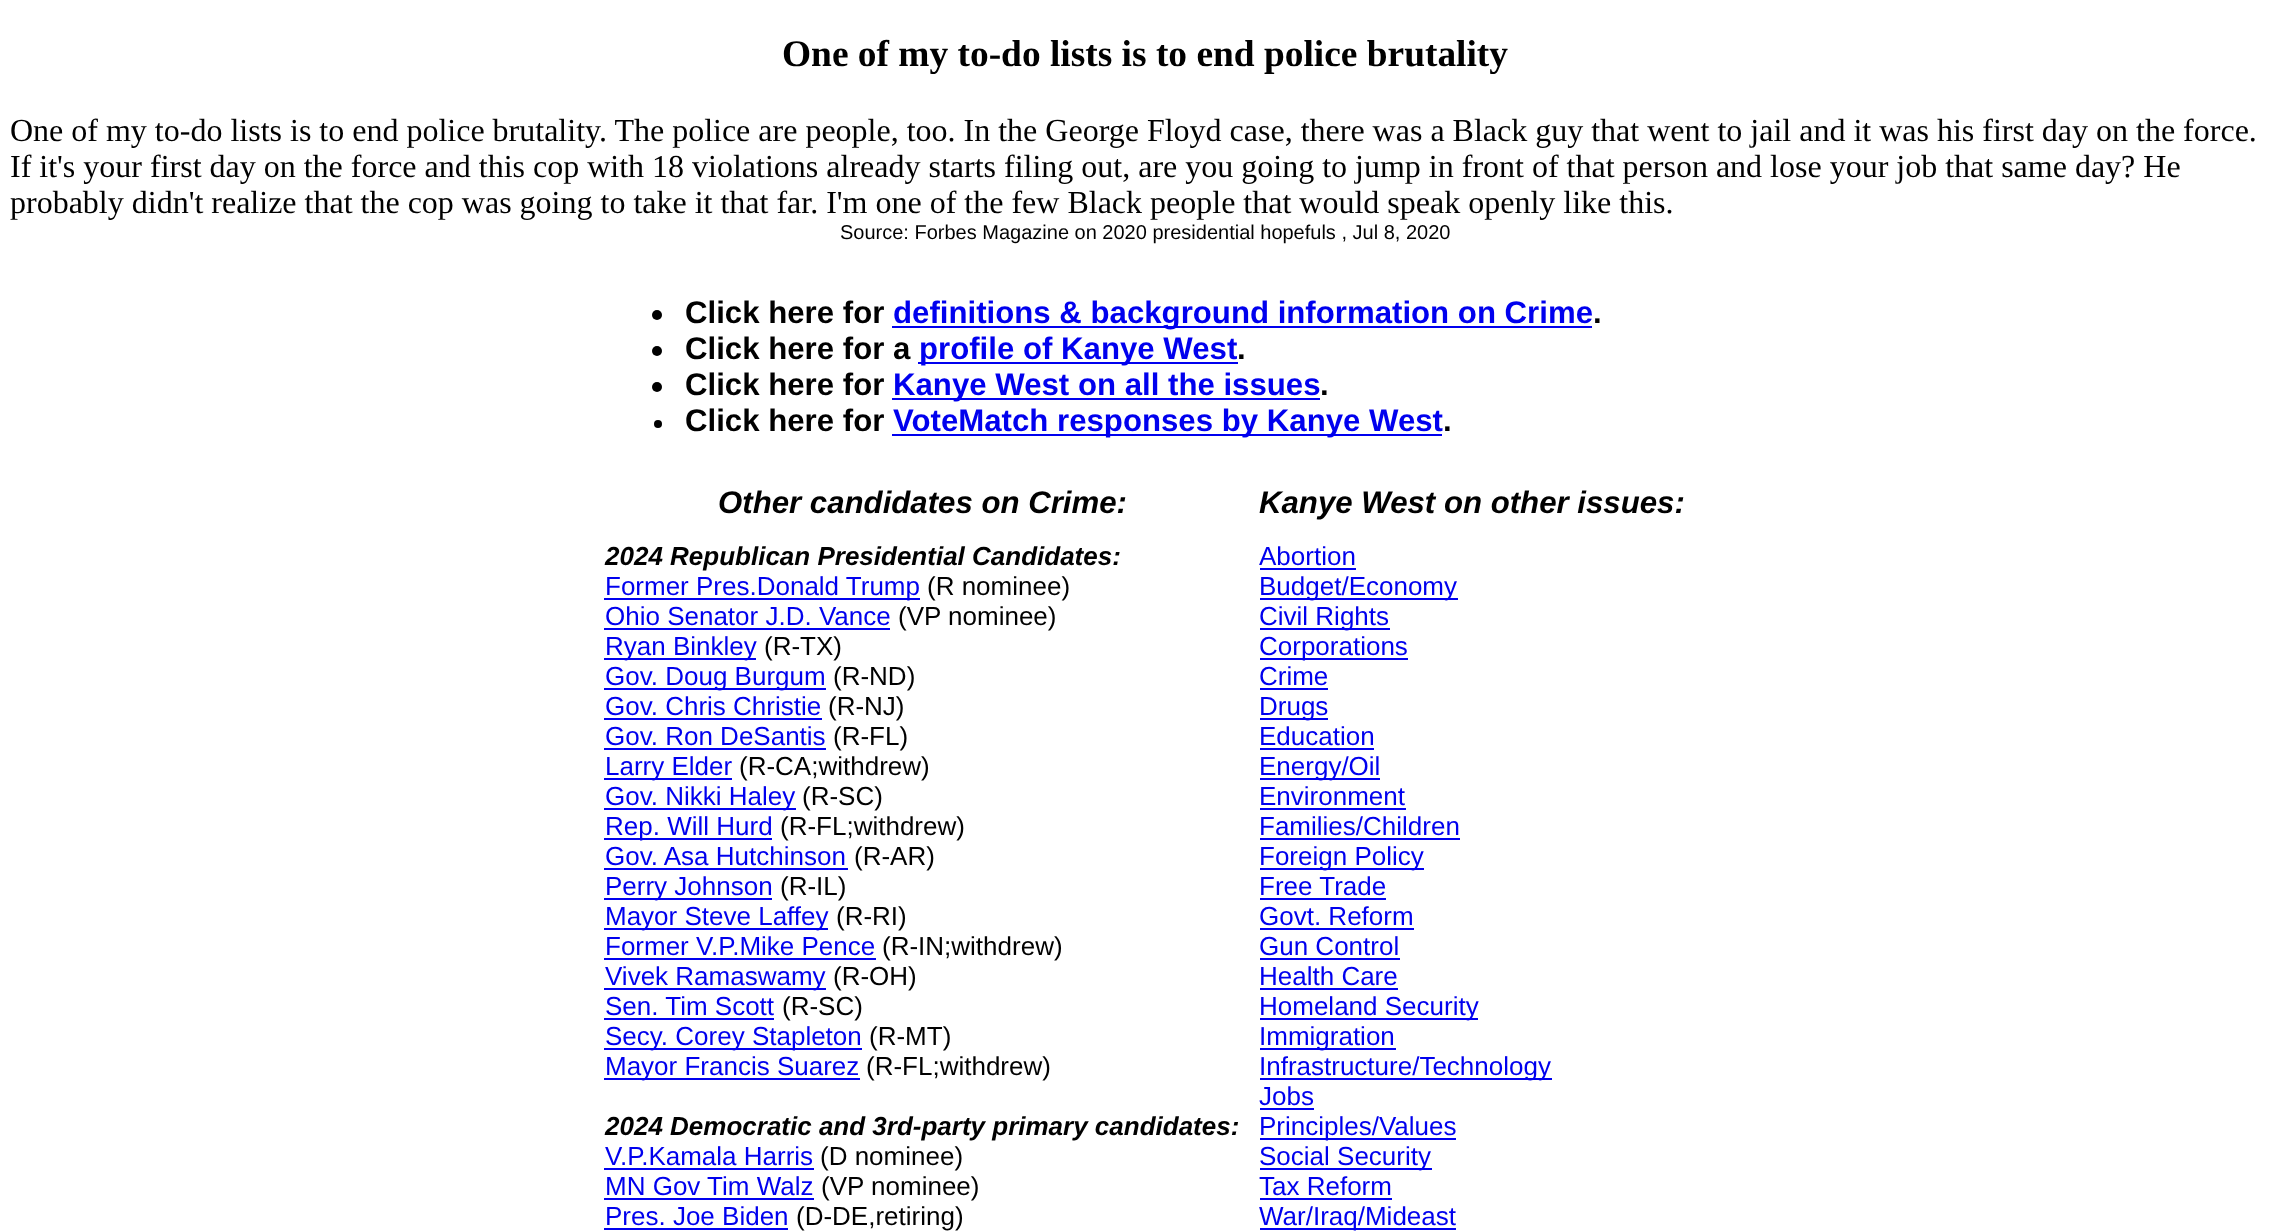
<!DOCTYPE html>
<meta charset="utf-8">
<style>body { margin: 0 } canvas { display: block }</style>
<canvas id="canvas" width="2290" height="1232"></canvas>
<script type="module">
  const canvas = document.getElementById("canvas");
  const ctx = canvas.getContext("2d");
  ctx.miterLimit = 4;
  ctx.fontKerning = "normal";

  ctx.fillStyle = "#ffffff";
  ctx.fillRect(0, 0, 2290, 1232);
  ctx.font = "bold 37.4px Liberation Serif";
  ctx.fillStyle = "#000000";
  ctx.fillText("One of my to-do lists is to end police brutality", 782, 66);
  ctx.font = "32px Liberation Serif";
  ctx.fillText("One of my to-do lists is to end police brutality. The police are people, too. In the George Floyd case, there was a Black guy that went to jail and it was his first day on the force.", 10, 141);
  ctx.fillText("If it's your first day on the force and this cop with 18 violations already starts filing out, are you going to jump in front of that person and lose your job that same day? He", 10, 177);
  ctx.fillText("probably didn't realize that the cop was going to take it that far. I'm one of the few Black people that would speak openly like this.", 10, 213);
  ctx.font = "20px Liberation Sans";
  ctx.fillText("Source: Forbes Magazine on 2020 presidential hopefuls , Jul 8, 2020", 840, 239);
  ctx.beginPath();
  ctx.arc(657, 315, 5, 0, Math.PI * 2);
  ctx.fill();
  ctx.font = "bold 31.2px Liberation Sans";
  ctx.fillText("Click here for", 685, 323);
  ctx.fillStyle = "#0000ee";
  ctx.fillRect(892, 326, 700, 2);
  ctx.fillText("definitions & background information on Crime", 893, 323);
  ctx.fillStyle = "#000000";
  ctx.fillText(".", 1593, 323);
  ctx.beginPath();
  ctx.arc(657, 351, 5, 0, Math.PI * 2);
  ctx.fill();
  ctx.fillText("Click here for a", 685, 359);
  ctx.fillStyle = "#0000ee";
  ctx.fillRect(918, 362, 320, 2);
  ctx.fillText("profile of Kanye West", 919, 359);
  ctx.fillStyle = "#000000";
  ctx.fillText(".", 1237, 359);
  ctx.beginPath();
  ctx.arc(657, 387, 5, 0, Math.PI * 2);
  ctx.fill();
  ctx.fillText("Click here for", 685, 395);
  ctx.fillStyle = "#0000ee";
  ctx.fillRect(892, 398, 428, 2);
  ctx.fillText("Kanye West on all the issues", 893, 395);
  ctx.fillStyle = "#000000";
  ctx.fillText(".", 1320, 395);
  ctx.beginPath();
  ctx.arc(658, 424, 4, 0, Math.PI * 2);
  ctx.fill();
  ctx.fillText("Click here for", 685, 431);
  ctx.fillStyle = "#0000ee";
  ctx.fillRect(892, 434, 550, 2);
  ctx.fillText("VoteMatch responses by Kanye West", 893, 431);
  ctx.fillStyle = "#000000";
  ctx.fillText(".", 1443, 431);
  ctx.font = "italic bold 31.2px Liberation Sans";
  ctx.fillText("Other candidates on Crime:", 718, 513);
  ctx.fillText("Kanye West on other issues:", 1259, 513);
  ctx.font = "italic bold 26px Liberation Sans";
  ctx.fillText("2024 Republican Presidential Candidates:", 605, 565);
  ctx.fillStyle = "#0000ee";
  ctx.fillRect(604, 598, 316, 2);
  ctx.font = "26px Liberation Sans";
  ctx.fillText("Former Pres.Donald Trump", 605, 595);
  ctx.fillStyle = "#000000";
  ctx.fillText("(R nominee)", 927, 595);
  ctx.fillStyle = "#0000ee";
  ctx.fillText("Ohio Senator J.D. Vance", 605, 625);
  ctx.fillRect(604, 628, 286, 2);
  ctx.fillStyle = "#000000";
  ctx.fillText("(VP nominee)", 898, 625);
  ctx.fillStyle = "#0000ee";
  ctx.fillRect(604, 658, 152, 2);
  ctx.fillText("Ryan Binkley", 605, 655);
  ctx.fillStyle = "#000000";
  ctx.fillText("(R-TX)", 764, 655);
  ctx.fillStyle = "#0000ee";
  ctx.fillRect(604, 688, 222, 2);
  ctx.fillText("Gov. Doug Burgum", 605, 685);
  ctx.fillStyle = "#000000";
  ctx.fillText("(R-ND)", 833, 685);
  ctx.fillStyle = "#0000ee";
  ctx.fillText("Gov. Chris Christie", 605, 715);
  ctx.fillRect(604, 718, 218, 2);
  ctx.fillStyle = "#000000";
  ctx.fillText("(R-NJ)", 828, 715);
  ctx.fillStyle = "#0000ee";
  ctx.fillText("Gov. Ron DeSantis", 605, 745);
  ctx.fillRect(604, 748, 222, 2);
  ctx.fillStyle = "#000000";
  ctx.fillText("(R-FL)", 833, 745);
  ctx.fillStyle = "#0000ee";
  ctx.fillRect(604, 778, 128, 2);
  ctx.fillText("Larry Elder", 605, 775);
  ctx.fillStyle = "#000000";
  ctx.fillText("(R-CA;withdrew)", 739, 775);
  ctx.fillStyle = "#0000ee";
  ctx.fillRect(604, 808, 192, 2);
  ctx.fillText("Gov. Nikki Haley", 605, 805);
  ctx.fillStyle = "#000000";
  ctx.fillText("(R-SC)", 802, 805);
  ctx.fillStyle = "#0000ee";
  ctx.fillRect(604, 838, 168, 2);
  ctx.fillText("Rep. Will Hurd", 605, 835);
  ctx.fillStyle = "#000000";
  ctx.fillText("(R-FL;withdrew)", 780, 835);
  ctx.fillStyle = "#0000ee";
  ctx.fillText("Gov. Asa Hutchinson", 605, 865);
  ctx.fillRect(604, 868, 244, 2);
  ctx.fillStyle = "#000000";
  ctx.fillText("(R-AR)", 854, 865);
  ctx.fillStyle = "#0000ee";
  ctx.fillRect(604, 898, 168, 2);
  ctx.fillText("Perry Johnson", 605, 895);
  ctx.fillStyle = "#000000";
  ctx.fillText("(R-IL)", 780, 895);
  ctx.fillStyle = "#0000ee";
  ctx.fillRect(604, 928, 224, 2);
  ctx.fillText("Mayor Steve Laffey", 605, 925);
  ctx.fillStyle = "#000000";
  ctx.fillText("(R-RI)", 836, 925);
  ctx.fillStyle = "#0000ee";
  ctx.fillText("Former V.P.Mike Pence", 605, 955);
  ctx.fillRect(604, 958, 272, 2);
  ctx.fillStyle = "#000000";
  ctx.fillText("(R-IN;withdrew)", 882, 955);
  ctx.fillStyle = "#0000ee";
  ctx.fillRect(604, 988, 222, 2);
  ctx.fillText("Vivek Ramaswamy", 605, 985);
  ctx.fillStyle = "#000000";
  ctx.fillText("(R-OH)", 833, 985);
  ctx.fillStyle = "#0000ee";
  ctx.fillText("Sen. Tim Scott", 605, 1015);
  ctx.fillRect(604, 1018, 170, 2);
  ctx.fillStyle = "#000000";
  ctx.fillText("(R-SC)", 782, 1015);
  ctx.fillStyle = "#0000ee";
  ctx.fillRect(604, 1048, 258, 2);
  ctx.fillText("Secy. Corey Stapleton", 605, 1045);
  ctx.fillStyle = "#000000";
  ctx.fillText("(R-MT)", 869, 1045);
  ctx.fillStyle = "#0000ee";
  ctx.fillRect(604, 1078, 256, 2);
  ctx.fillText("Mayor Francis Suarez", 605, 1075);
  ctx.fillStyle = "#000000";
  ctx.fillText("(R-FL;withdrew)", 866, 1075);
  ctx.font = "italic bold 26px Liberation Sans";
  ctx.fillText("2024 Democratic and 3rd-party primary candidates:", 605, 1135);
  ctx.font = "26px Liberation Sans";
  ctx.fillStyle = "#0000ee";
  ctx.fillText("V.P.Kamala Harris", 605, 1165);
  ctx.fillRect(604, 1168, 210, 2);
  ctx.fillStyle = "#000000";
  ctx.fillText("(D nominee)", 820, 1165);
  ctx.fillStyle = "#0000ee";
  ctx.fillText("MN Gov Tim Walz", 605, 1195);
  ctx.fillRect(604, 1198, 210, 2);
  ctx.fillStyle = "#000000";
  ctx.fillText("(VP nominee)", 821, 1195);
  ctx.fillStyle = "#0000ee";
  ctx.fillText("Pres. Joe Biden", 605, 1225);
  ctx.fillRect(604, 1228, 184, 2);
  ctx.fillStyle = "#000000";
  ctx.fillText("(D-DE,retiring)", 796, 1225);
  ctx.fillStyle = "#0000ee";
  ctx.fillText("Abortion", 1259, 565);
  ctx.fillRect(1260, 568, 96, 2);
  ctx.fillRect(1260, 598, 198, 2);
  ctx.fillText("Budget/Economy", 1259, 595);
  ctx.fillRect(1260, 628, 130, 2);
  ctx.fillText("Civil Rights", 1259, 625);
  ctx.fillRect(1260, 658, 148, 2);
  ctx.fillText("Corporations", 1259, 655);
  ctx.fillText("Crime", 1259, 685);
  ctx.fillRect(1260, 688, 68, 2);
  ctx.fillRect(1260, 718, 68, 2);
  ctx.fillText("Drugs", 1259, 715);
  ctx.fillText("Education", 1259, 745);
  ctx.fillRect(1260, 748, 114, 2);
  ctx.fillRect(1260, 778, 120, 2);
  ctx.fillText("Energy/Oil", 1259, 775);
  ctx.fillText("Environment", 1259, 805);
  ctx.fillRect(1260, 808, 146, 2);
  ctx.fillText("Families/Children", 1259, 835);
  ctx.fillRect(1260, 838, 200, 2);
  ctx.fillRect(1260, 868, 164, 2);
  ctx.fillText("Foreign Policy", 1259, 865);
  ctx.fillText("Free Trade", 1259, 895);
  ctx.fillRect(1260, 898, 126, 2);
  ctx.fillText("Govt. Reform", 1259, 925);
  ctx.fillRect(1260, 928, 154, 2);
  ctx.fillText("Gun Control", 1259, 955);
  ctx.fillRect(1260, 958, 140, 2);
  ctx.fillText("Health Care", 1259, 985);
  ctx.fillRect(1260, 988, 138, 2);
  ctx.fillRect(1260, 1018, 218, 2);
  ctx.fillText("Homeland Security", 1259, 1015);
  ctx.fillRect(1260, 1048, 136, 2);
  ctx.fillText("Immigration", 1259, 1045);
  ctx.fillRect(1260, 1078, 292, 2);
  ctx.fillText("Infrastructure/Technology", 1259, 1075);
  ctx.fillText("Jobs", 1259, 1105);
  ctx.fillRect(1260, 1108, 54, 2);
  ctx.fillRect(1260, 1138, 196, 2);
  ctx.fillText("Principles/Values", 1259, 1135);
  ctx.fillRect(1260, 1168, 172, 2);
  ctx.fillText("Social Security", 1259, 1165);
  ctx.fillText("Tax Reform", 1259, 1195);
  ctx.fillRect(1260, 1198, 132, 2);
  ctx.fillRect(1260, 1228, 196, 2);
  ctx.fillText("War/Iraq/Mideast", 1259, 1225);
</script>
